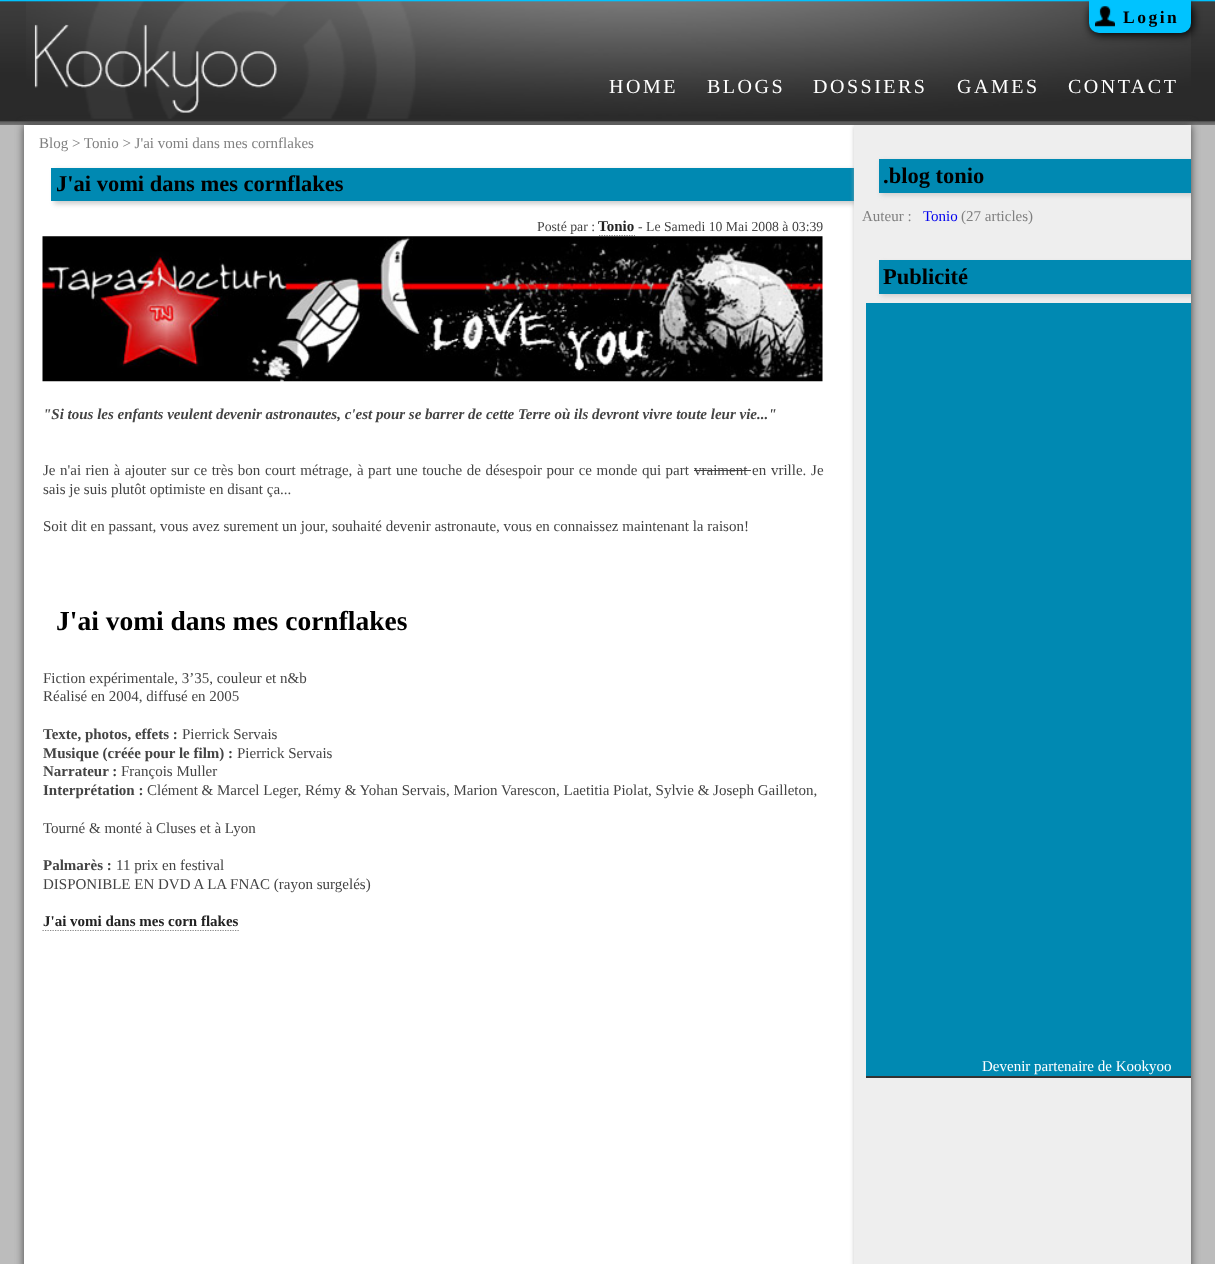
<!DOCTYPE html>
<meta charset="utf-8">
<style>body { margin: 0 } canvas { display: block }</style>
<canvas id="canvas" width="1215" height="1264"></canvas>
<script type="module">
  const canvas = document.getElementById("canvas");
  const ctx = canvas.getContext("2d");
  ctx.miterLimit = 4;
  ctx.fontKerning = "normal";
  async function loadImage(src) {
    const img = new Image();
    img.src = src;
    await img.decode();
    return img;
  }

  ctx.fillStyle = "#bcbcbc";
  ctx.fillRect(0, 0, 1215, 1264);
  ctx.drawImage(await loadImage("img1.png"), 0, 0, 1215, 125);
  ctx.drawImage(await loadImage("img2.png"), 26, 1, 1165, 118);
  ctx.fillStyle = "#000000";
  ctx.filter = "blur(4px)";
  ctx.beginPath();
  ctx.roundRect(1090, 3, 103, 32, 10);
  ctx.fill();
  ctx.filter = "none";
  ctx.fillStyle = "#00c3ff";
  ctx.beginPath();
  ctx.roundRect(1089, 0, 102, 33, [0, 0, 10, 10]);
  ctx.fill();
  ctx.drawImage(await loadImage("img3.png"), 1095, 6, 20, 21);
  ctx.letterSpacing = "2.5px";
  ctx.font = "bold 17.5px Liberation Serif";
  ctx.fillStyle = "#000000";
  ctx.fillText("Login", 1123, 23);
  ctx.font = "20px Liberation Serif";
  ctx.fillStyle = "#ffffff";
  ctx.fillText("HOME", 609, 93);
  ctx.fillText("BLOGS", 707, 93);
  ctx.fillText("DOSSIERS", 813, 93);
  ctx.fillText("GAMES", 957, 93);
  ctx.fillText("CONTACT", 1068, 93);
  ctx.fillStyle = "#444444";
  ctx.filter = "blur(4px)";
  ctx.beginPath();
  ctx.rect(24, 125, 1167, 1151);
  ctx.fill();
  ctx.filter = "none";
  ctx.fillStyle = "#ffffff";
  ctx.fillRect(24, 125, 830, 1139);
  ctx.letterSpacing = "0px";
  ctx.font = "15px Liberation Serif";
  ctx.fillStyle = "#808080";
  ctx.fillText("Blog > Tonio > J'ai vomi dans mes cornflakes", 39, 148);
  ctx.fillStyle = "#cccccc";
  ctx.filter = "blur(2.5px)";
  ctx.beginPath();
  ctx.rect(54, 170, 820, 34);
  ctx.fill();
  ctx.filter = "none";
  ctx.fillStyle = "#0089b2";
  ctx.fillRect(51, 168, 803, 33);
  ctx.font = "bold 22.5px Liberation Serif";
  ctx.fillStyle = "#000000";
  ctx.fillText("J'ai vomi dans mes cornflakes", 56, 191);
  ctx.font = "13.75px Liberation Serif";
  ctx.fillStyle = "#444444";
  ctx.fillText("Posté par :", 537, 231);
  ctx.font = "bold 15px Liberation Serif";
  ctx.fillStyle = "#222222";
  ctx.fillText("Tonio", 598, 231);
  ctx.beginPath();
  ctx.moveTo(599, 235.5);
  ctx.lineTo(635, 235.5);
  ctx.strokeStyle = "#888888";
  ctx.lineWidth = 1.2;
  ctx.setLineDash([1.25, 1.25]);
  ctx.stroke();
  ctx.font = "13.75px Liberation Serif";
  ctx.fillStyle = "#444444";
  ctx.fillText("- Le Samedi 10 Mai 2008 à 03:39", 638, 231);
  ctx.drawImage(await loadImage("img4.png"), 42, 236, 781, 146);
  ctx.font = "italic bold 15px Liberation Serif";
  ctx.fillText("\"Si tous les enfants veulent devenir astronautes, c'est pour se barrer de cette Terre où ils devront vivre toute leur vie...\"", 43, 419);
  ctx.wordSpacing = "0.8px";
  ctx.font = "15px Liberation Serif";
  ctx.fillText("Je n'ai rien à ajouter sur ce très bon court métrage, à part une touche de désespoir pour ce monde qui part", 43, 475);
  ctx.wordSpacing = "0px";
  ctx.fillText("vraiment", 694, 475);
  ctx.fillRect(694, 470, 57, 1);
  ctx.wordSpacing = "1px";
  ctx.fillText("en vrille. Je", 752, 475);
  ctx.wordSpacing = "0px";
  ctx.fillText("sais je suis plutôt optimiste en disant ça...", 43, 494);
  ctx.fillText("Soit dit en passant, vous avez surement un jour, souhaité devenir astronaute, vous en connaissez maintenant la raison!", 43, 531);
  ctx.font = "bold 27.5px Liberation Serif";
  ctx.fillStyle = "#000000";
  ctx.fillText("J'ai vomi dans mes cornflakes", 56, 630);
  ctx.font = "15px Liberation Serif";
  ctx.fillStyle = "#444444";
  ctx.fillText("Fiction expérimentale, 3’35, couleur et n&b", 43, 683);
  ctx.fillText("Réalisé en 2004, diffusé en 2005", 43, 701);
  ctx.font = "bold 15px Liberation Serif";
  ctx.fillText("Texte, photos, effets :", 43, 739);
  ctx.font = "15px Liberation Serif";
  ctx.fillText("Pierrick Servais", 182, 739);
  ctx.font = "bold 15px Liberation Serif";
  ctx.fillText("Musique (créée pour le film) :", 43, 758);
  ctx.font = "15px Liberation Serif";
  ctx.fillText("Pierrick Servais", 237, 758);
  ctx.font = "bold 15px Liberation Serif";
  ctx.fillText("Narrateur :", 43, 776);
  ctx.font = "15px Liberation Serif";
  ctx.fillText("François Muller", 121, 776);
  ctx.font = "bold 15px Liberation Serif";
  ctx.fillText("Interprétation :", 43, 795);
  ctx.font = "15px Liberation Serif";
  ctx.fillText("Clément & Marcel Leger, Rémy & Yohan Servais, Marion Varescon, Laetitia Piolat, Sylvie & Joseph Gailleton,", 147, 795);
  ctx.fillText("Tourné & monté à Cluses et à Lyon", 43, 833);
  ctx.font = "bold 15px Liberation Serif";
  ctx.fillText("Palmarès :", 43, 870);
  ctx.font = "15px Liberation Serif";
  ctx.fillText("11 prix en festival", 116, 870);
  ctx.fillText("DISPONIBLE EN DVD A LA FNAC (rayon surgelés)", 43, 889);
  ctx.font = "bold 15px Liberation Serif";
  ctx.fillStyle = "#222222";
  ctx.fillText("J'ai vomi dans mes corn flakes", 43, 926);
  ctx.beginPath();
  ctx.moveTo(42.5, 930.5);
  ctx.lineTo(239, 930.5);
  ctx.stroke();
  ctx.save();
  ctx.beginPath();
  ctx.rect(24, 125, 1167, 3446);
  ctx.clip();
  ctx.fillStyle = "#aaaaaa";
  ctx.filter = "blur(2.5px)";
  ctx.beginPath();
  ctx.rect(855, 126, 355, 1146);
  ctx.fill();
  ctx.filter = "none";
  ctx.restore();
  ctx.fillStyle = "#eeeeee";
  ctx.fillRect(854, 125, 337, 1139);
  ctx.save();
  ctx.beginPath();
  ctx.rect(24, 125, 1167, 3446);
  ctx.clip();
  ctx.fillStyle = "#cccccc";
  ctx.filter = "blur(2.5px)";
  ctx.beginPath();
  ctx.rect(881, 161, 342, 34);
  ctx.fill();
  ctx.filter = "none";
  ctx.restore();
  ctx.fillStyle = "#0089b2";
  ctx.fillRect(879, 159, 312, 34);
  ctx.font = "bold 22.5px Liberation Serif";
  ctx.fillStyle = "#000000";
  ctx.fillText(".blog tonio", 883, 183);
  ctx.font = "15px Liberation Serif";
  ctx.fillStyle = "#808080";
  ctx.fillText("Auteur :", 862, 221);
  ctx.fillStyle = "#0000ee";
  ctx.fillText("Tonio", 923, 221);
  ctx.fillStyle = "#808080";
  ctx.fillText("(27 articles)", 961, 221);
  ctx.save();
  ctx.beginPath();
  ctx.rect(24, 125, 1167, 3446);
  ctx.clip();
  ctx.fillStyle = "#cccccc";
  ctx.filter = "blur(2.5px)";
  ctx.beginPath();
  ctx.rect(881, 263, 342, 33);
  ctx.fill();
  ctx.filter = "none";
  ctx.restore();
  ctx.fillStyle = "#0089b2";
  ctx.fillRect(879, 260, 312, 34);
  ctx.font = "bold 22.5px Liberation Serif";
  ctx.fillStyle = "#000000";
  ctx.fillText("Publicité", 883, 284);
  ctx.save();
  ctx.beginPath();
  ctx.rect(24, 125, 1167, 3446);
  ctx.clip();
  ctx.fillStyle = "#333333";
  ctx.filter = "blur(0.5px)";
  ctx.beginPath();
  ctx.rect(866, 304, 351, 774);
  ctx.fill();
  ctx.filter = "none";
  ctx.restore();
  ctx.fillStyle = "#0089b2";
  ctx.fillRect(866, 303, 325, 773);
  ctx.font = "15px Liberation Serif";
  ctx.fillStyle = "#ffffff";
  ctx.fillText("Devenir partenaire de Kookyoo", 982, 1071);
</script>
